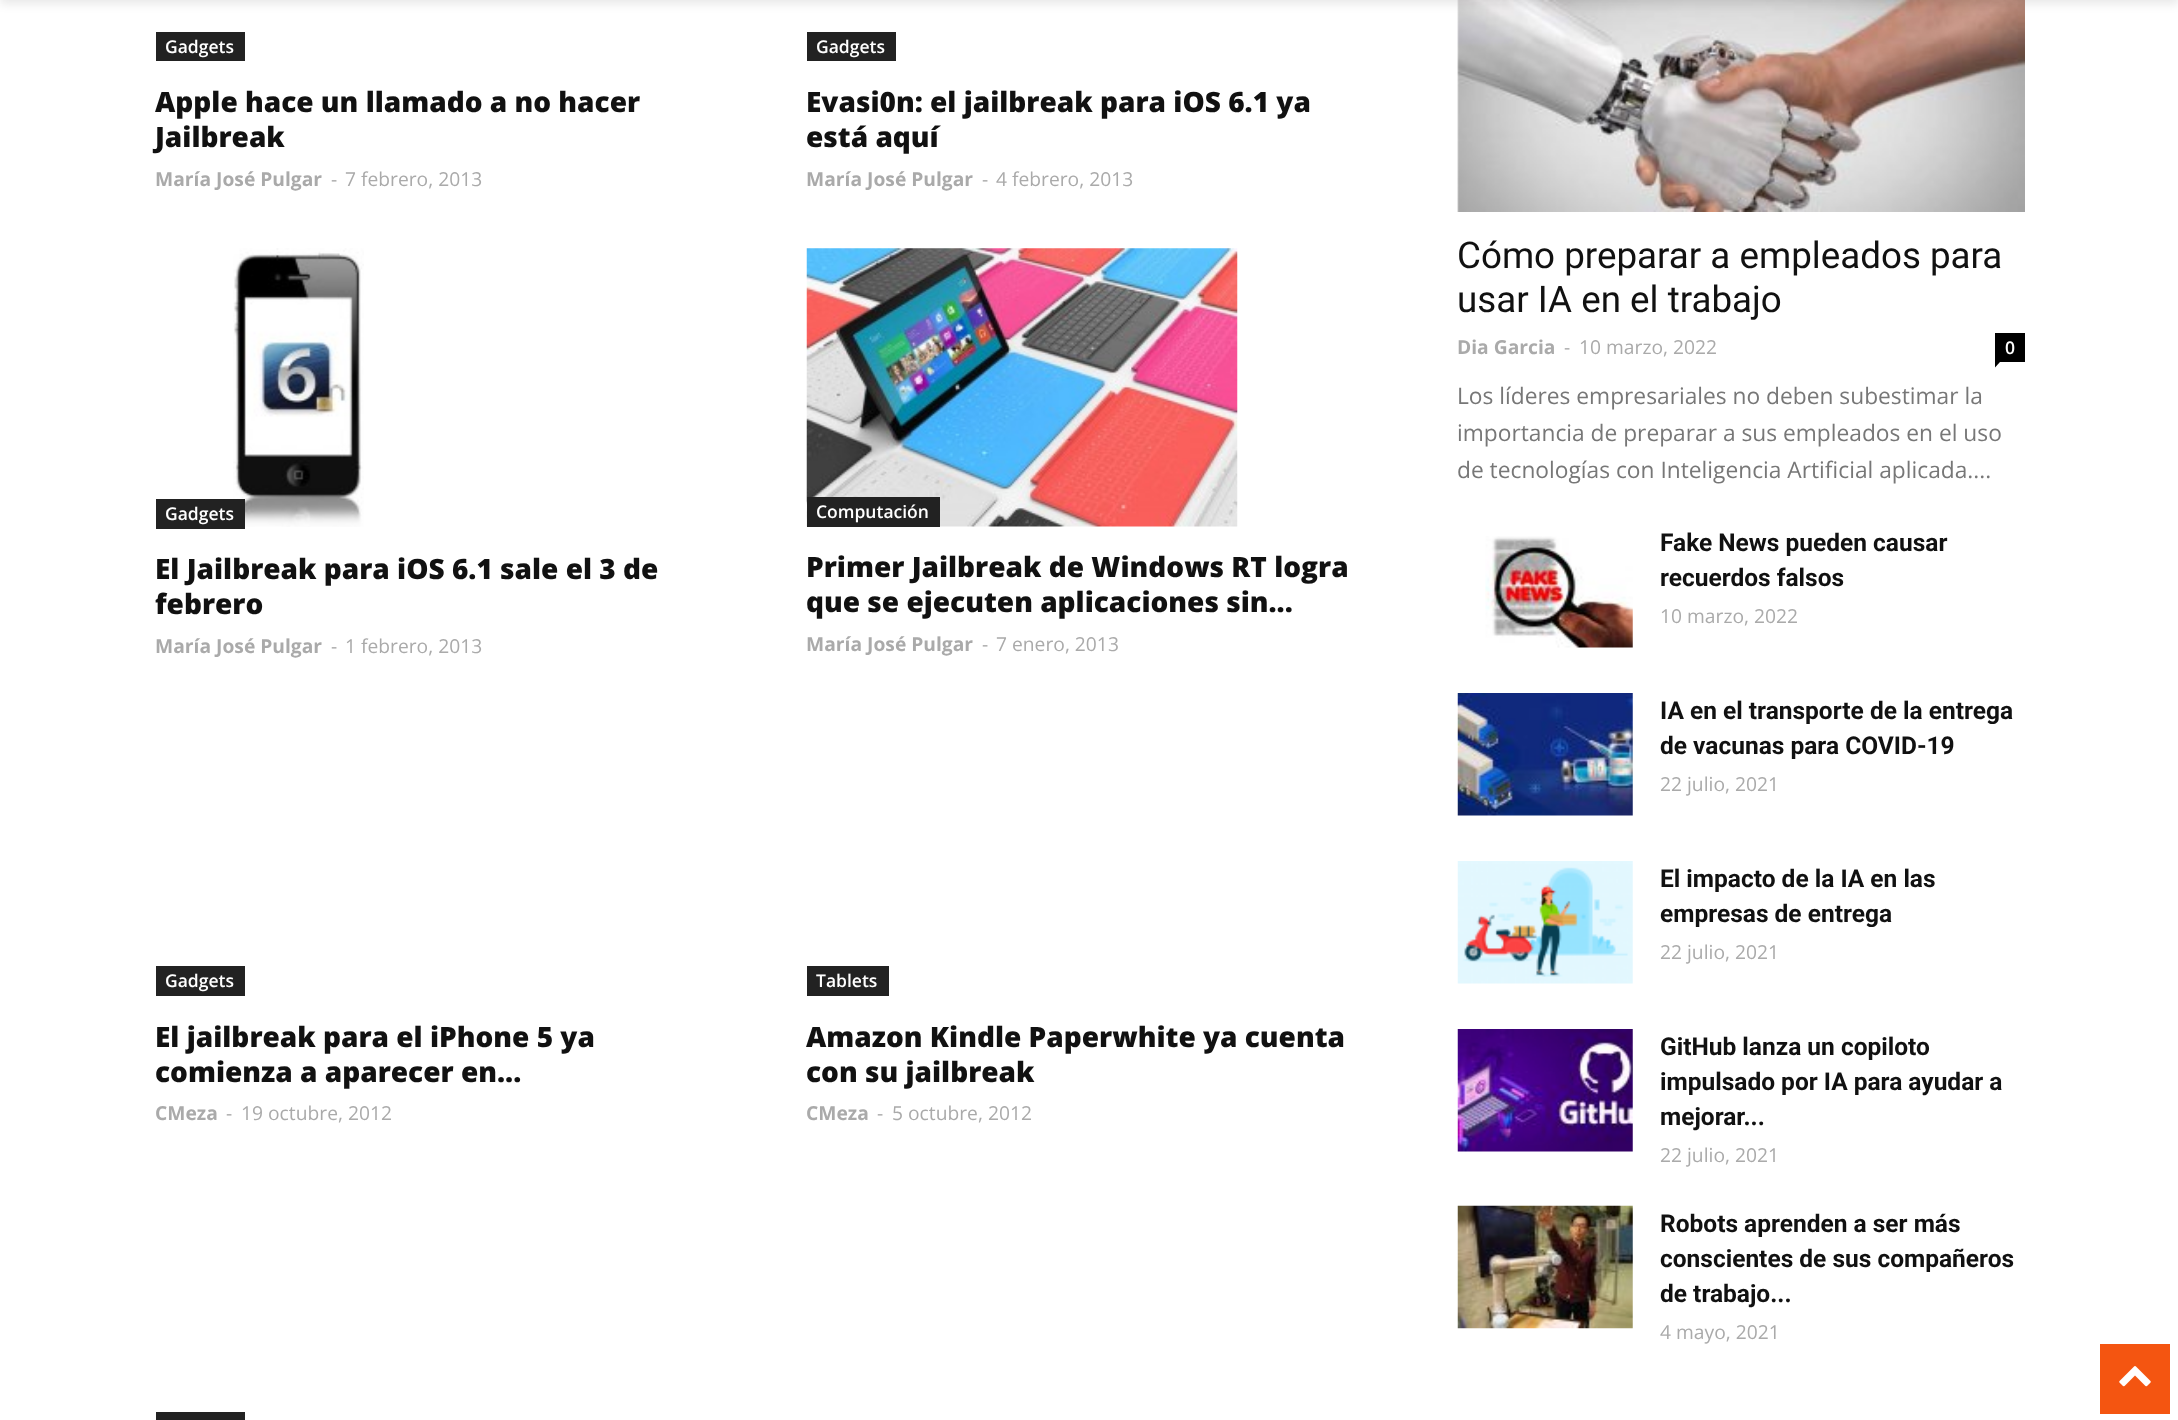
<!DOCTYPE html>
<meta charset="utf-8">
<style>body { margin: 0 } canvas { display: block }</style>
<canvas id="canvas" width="2178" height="1420"></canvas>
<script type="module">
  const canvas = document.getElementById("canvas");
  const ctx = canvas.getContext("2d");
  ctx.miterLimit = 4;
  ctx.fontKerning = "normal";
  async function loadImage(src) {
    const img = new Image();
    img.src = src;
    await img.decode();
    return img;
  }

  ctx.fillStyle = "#ffffff";
  ctx.fillRect(0, 0, 2178, 1420);
  ctx.drawImage(await loadImage("img3.png"), 1457, 0, 568, 212);
  ctx.fillStyle = "rgba(0, 0, 0, 0.09)";
  ctx.filter = "blur(5px)";
  ctx.beginPath();
  ctx.rect(0, -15, 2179, 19);
  ctx.fill();
  ctx.filter = "none";
  ctx.fillStyle = "#222222";
  ctx.fillRect(156, 32, 89, 29);
  ctx.font = "600 17.5px Open Sans";
  ctx.fillStyle = "#ffffff";
  ctx.fillText("Gadgets", 165, 53);
  ctx.font = "800 28px Open Sans";
  ctx.fillStyle = "#111111";
  ctx.fillText("Apple hace un llamado a no hacer", 155, 112);
  ctx.fillText("Jailbreak", 155, 147);
  ctx.font = "bold 19.25px Open Sans";
  ctx.fillStyle = "#aaaaaa";
  ctx.fillText("María José Pulgar", 155, 186);
  ctx.font = "19.25px Open Sans";
  ctx.fillText("-", 331, 186);
  ctx.fillText("7 febrero, 2013", 345, 186);
  ctx.fillStyle = "#222222";
  ctx.fillRect(807, 32, 89, 29);
  ctx.font = "600 17.5px Open Sans";
  ctx.fillStyle = "#ffffff";
  ctx.fillText("Gadgets", 816, 53);
  ctx.font = "800 28px Open Sans";
  ctx.fillStyle = "#111111";
  ctx.fillText("Evasi0n: el jailbreak para iOS 6.1 ya", 806, 112);
  ctx.fillText("está aquí", 806, 147);
  ctx.font = "bold 19.25px Open Sans";
  ctx.fillStyle = "#aaaaaa";
  ctx.fillText("María José Pulgar", 806, 186);
  ctx.font = "19.25px Open Sans";
  ctx.fillText("-", 982, 186);
  ctx.fillText("4 febrero, 2013", 996, 186);
  ctx.drawImage(await loadImage("img1.png"), 233, 248, 131, 279);
  ctx.fillStyle = "#222222";
  ctx.fillRect(156, 499, 89, 30);
  ctx.font = "600 17.5px Open Sans";
  ctx.fillStyle = "#ffffff";
  ctx.fillText("Gadgets", 165, 520);
  ctx.font = "800 28px Open Sans";
  ctx.fillStyle = "#111111";
  ctx.fillText("El Jailbreak para iOS 6.1 sale el 3 de", 155, 579);
  ctx.fillText("febrero", 155, 614);
  ctx.font = "bold 19.25px Open Sans";
  ctx.fillStyle = "#aaaaaa";
  ctx.fillText("María José Pulgar", 155, 653);
  ctx.font = "19.25px Open Sans";
  ctx.fillText("-", 331, 653);
  ctx.fillText("1 febrero, 2013", 345, 653);
  ctx.drawImage(await loadImage("img2.png"), 806, 248, 432, 279);
  ctx.fillStyle = "#222222";
  ctx.fillRect(807, 497, 133, 30);
  ctx.font = "600 17.5px Open Sans";
  ctx.fillStyle = "#ffffff";
  ctx.fillText("Computación", 816, 518);
  ctx.font = "800 28px Open Sans";
  ctx.fillStyle = "#111111";
  ctx.fillText("Primer Jailbreak de Windows RT logra", 806, 577);
  ctx.fillText("que se ejecuten aplicaciones sin...", 806, 612);
  ctx.font = "bold 19.25px Open Sans";
  ctx.fillStyle = "#aaaaaa";
  ctx.fillText("María José Pulgar", 806, 651);
  ctx.font = "19.25px Open Sans";
  ctx.fillText("-", 982, 651);
  ctx.fillText("7 enero, 2013", 996, 651);
  ctx.fillStyle = "#222222";
  ctx.fillRect(156, 966, 89, 30);
  ctx.font = "600 17.5px Open Sans";
  ctx.fillStyle = "#ffffff";
  ctx.fillText("Gadgets", 165, 987);
  ctx.font = "800 28px Open Sans";
  ctx.fillStyle = "#111111";
  ctx.fillText("El jailbreak para el iPhone 5 ya", 155, 1047);
  ctx.fillText("comienza a aparecer en...", 155, 1082);
  ctx.font = "bold 19.25px Open Sans";
  ctx.fillStyle = "#aaaaaa";
  ctx.fillText("CMeza", 155, 1120);
  ctx.font = "19.25px Open Sans";
  ctx.fillText("-", 226, 1120);
  ctx.fillText("19 octubre, 2012", 241, 1120);
  ctx.fillStyle = "#222222";
  ctx.fillRect(807, 966, 82, 30);
  ctx.font = "600 17.5px Open Sans";
  ctx.fillStyle = "#ffffff";
  ctx.fillText("Tablets", 816, 987);
  ctx.font = "800 28px Open Sans";
  ctx.fillStyle = "#111111";
  ctx.fillText("Amazon Kindle Paperwhite ya cuenta", 806, 1047);
  ctx.fillText("con su jailbreak", 806, 1082);
  ctx.font = "bold 19.25px Open Sans";
  ctx.fillStyle = "#aaaaaa";
  ctx.fillText("CMeza", 806, 1120);
  ctx.font = "19.25px Open Sans";
  ctx.fillText("-", 877, 1120);
  ctx.fillText("5 octubre, 2012", 892, 1120);
  ctx.fillStyle = "#222222";
  ctx.fillRect(156, 1412, 89, 8);
  ctx.font = "36.75px Roboto";
  ctx.fillStyle = "#111111";
  ctx.fillText("Cómo preparar a empleados para", 1457, 268);
  ctx.fillText("usar IA en el trabajo", 1457, 312);
  ctx.font = "bold 19.25px Open Sans";
  ctx.fillStyle = "#aaaaaa";
  ctx.fillText("Dia Garcia", 1457, 354);
  ctx.font = "19.25px Open Sans";
  ctx.fillText("-", 1564, 354);
  ctx.fillText("10 marzo, 2022", 1579, 354);
  ctx.fillStyle = "#000000";
  ctx.fillRect(1995, 333, 30, 29);
  ctx.font = "600 17.5px Open Sans";
  ctx.fillStyle = "#ffffff";
  ctx.fillText("0", 2005, 354);
  ctx.fillStyle = "#000000";
  ctx.beginPath();
  ctx.moveTo(1995, 362);
  ctx.lineTo(2000, 362);
  ctx.lineTo(1995, 367.5);
  ctx.closePath();
  ctx.fill();
  ctx.font = "22.75px Open Sans";
  ctx.fillStyle = "#777777";
  ctx.fillText("Los líderes empresariales no deben subestimar la", 1457, 404);
  ctx.fillText("importancia de preparar a sus empleados en el uso", 1457, 441);
  ctx.fillText("de tecnologías con Inteligencia Artificial aplicada....", 1457, 478);
  ctx.drawImage(await loadImage("img4.png"), 1485, 536, 148, 112);
  ctx.font = "bold 24.5px Roboto";
  ctx.fillStyle = "#111111";
  ctx.fillText("Fake News pueden causar", 1660, 551);
  ctx.fillText("recuerdos falsos", 1660, 586);
  ctx.font = "19.25px Open Sans";
  ctx.fillStyle = "#aaaaaa";
  ctx.fillText("10 marzo, 2022", 1660, 623);
  ctx.drawImage(await loadImage("img5.png"), 1457, 693, 176, 123);
  ctx.font = "bold 24.5px Roboto";
  ctx.fillStyle = "#111111";
  ctx.fillText("IA en el transporte de la entrega", 1660, 719);
  ctx.fillText("de vacunas para COVID-19", 1660, 754);
  ctx.font = "19.25px Open Sans";
  ctx.fillStyle = "#aaaaaa";
  ctx.fillText("22 julio, 2021", 1660, 791);
  ctx.drawImage(await loadImage("img6.png"), 1457, 861, 176, 123);
  ctx.font = "bold 24.5px Roboto";
  ctx.fillStyle = "#111111";
  ctx.fillText("El impacto de la IA en las", 1660, 887);
  ctx.fillText("empresas de entrega", 1660, 922);
  ctx.font = "19.25px Open Sans";
  ctx.fillStyle = "#aaaaaa";
  ctx.fillText("22 julio, 2021", 1660, 959);
  ctx.drawImage(await loadImage("img7.png"), 1457, 1029, 176, 123);
  ctx.font = "bold 24.5px Roboto";
  ctx.fillStyle = "#111111";
  ctx.fillText("GitHub lanza un copiloto", 1660, 1055);
  ctx.fillText("impulsado por IA para ayudar a", 1660, 1090);
  ctx.fillText("mejorar...", 1660, 1125);
  ctx.font = "19.25px Open Sans";
  ctx.fillStyle = "#aaaaaa";
  ctx.fillText("22 julio, 2021", 1660, 1162);
  ctx.drawImage(await loadImage("img8.png"), 1457, 1205, 176, 124);
  ctx.font = "bold 24.5px Roboto";
  ctx.fillStyle = "#111111";
  ctx.fillText("Robots aprenden a ser más", 1660, 1232);
  ctx.fillText("conscientes de sus compañeros", 1660, 1267);
  ctx.fillText("de trabajo...", 1660, 1302);
  ctx.font = "19.25px Open Sans";
  ctx.fillStyle = "#aaaaaa";
  ctx.fillText("4 mayo, 2021", 1660, 1339);
  ctx.fillStyle = "#f45511";
  ctx.fillRect(2100, 1344, 70, 70);
  ctx.drawImage(await loadImage("img9.png"), 2119, 1366, 32, 21);
</script>
